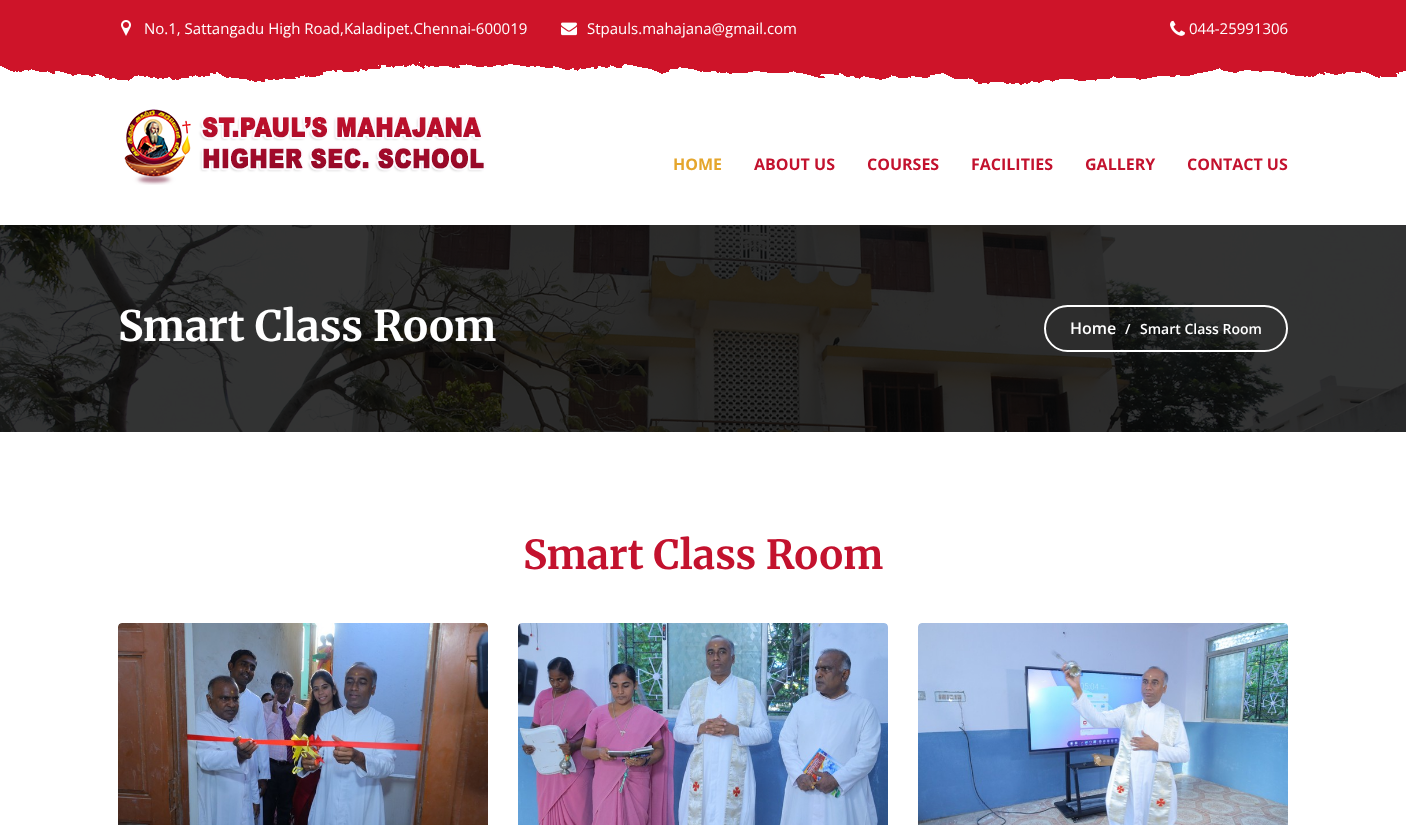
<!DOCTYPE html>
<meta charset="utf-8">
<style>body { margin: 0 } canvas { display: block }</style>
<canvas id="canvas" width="1406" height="825"></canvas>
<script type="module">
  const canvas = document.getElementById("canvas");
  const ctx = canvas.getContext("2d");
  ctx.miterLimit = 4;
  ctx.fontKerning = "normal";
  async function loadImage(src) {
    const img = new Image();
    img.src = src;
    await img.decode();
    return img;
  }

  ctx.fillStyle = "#ffffff";
  ctx.fillRect(0, 0, 1406, 825);
  ctx.fillStyle = "#ce1429";
  ctx.fillRect(0, 0, 1406, 85);
  ctx.drawImage(await loadImage("img1.png"), 0, 62, 1406, 23);
  ctx.drawImage(await loadImage("img2.png"), 121, 20, 10, 16);
  ctx.font = "15px Open Sans";
  ctx.fillStyle = "#ffffff";
  ctx.fillText("No.1, Sattangadu High Road,Kaladipet.Chennai-600019", 144, 34);
  ctx.drawImage(await loadImage("img3.png"), 561, 22, 16, 14);
  ctx.fillText("Stpauls.mahajana@gmail.com", 587, 34);
  ctx.drawImage(await loadImage("img4.png"), 1170, 20, 15, 16);
  ctx.fillText("044-25991306", 1189, 34);
  ctx.drawImage(await loadImage("img5.png"), 124, 109, 362, 76);
  ctx.font = "bold 16px Open Sans";
  ctx.fillStyle = "#e5a62d";
  ctx.fillText("HOME", 673, 170);
  ctx.fillStyle = "#c3122e";
  ctx.fillText("ABOUT US", 754, 170);
  ctx.fillText("COURSES", 867, 170);
  ctx.fillText("FACILITIES", 971, 170);
  ctx.fillText("GALLERY", 1085, 170);
  ctx.fillText("CONTACT US", 1187, 170);
  ctx.drawImage(await loadImage("img6.png"), 0, 225, 1406, 207);
  ctx.font = "bold 42px Merriweather";
  ctx.fillStyle = "#ffffff";
  ctx.fillText("Smart Class Room", 118, 341);
  ctx.beginPath();
  ctx.roundRect(1045, 306, 242, 45, 22.5);
  ctx.strokeStyle = "#ffffff";
  ctx.lineWidth = 2;
  ctx.stroke();
  ctx.font = "600 16px Open Sans";
  ctx.fillText("Home", 1070, 334);
  ctx.font = "600 14px Open Sans";
  ctx.fillText("/", 1125, 334);
  ctx.fillText("Smart Class Room", 1140, 334);
  ctx.font = "bold 40px Merriweather";
  ctx.fillStyle = "#c3122e";
  ctx.fillText("Smart Class Room", 523, 569);
  ctx.drawImage(await loadImage("img7.png"), 118, 623, 370, 202);
  ctx.drawImage(await loadImage("img8.png"), 518, 623, 370, 202);
  ctx.drawImage(await loadImage("img9.png"), 918, 623, 370, 202);
</script>
